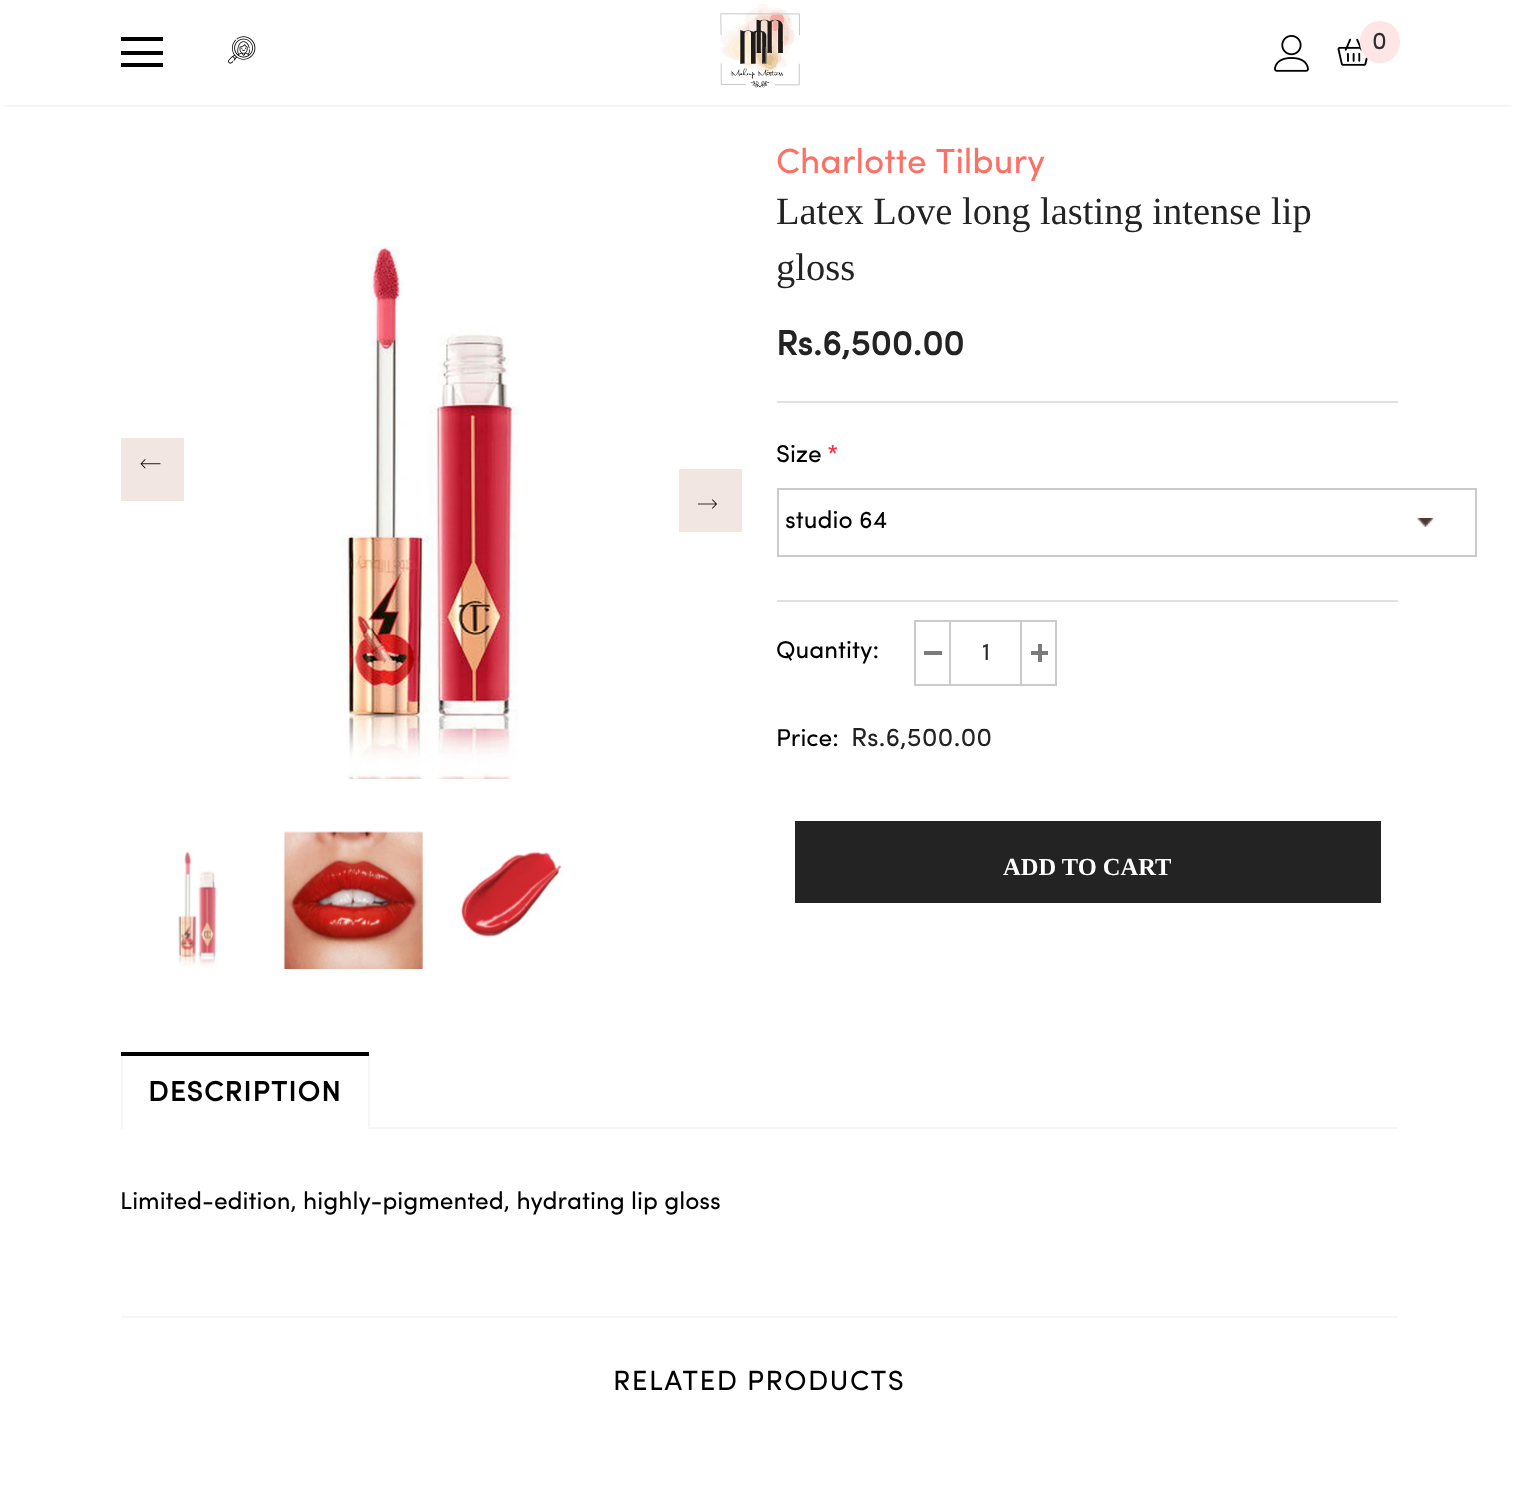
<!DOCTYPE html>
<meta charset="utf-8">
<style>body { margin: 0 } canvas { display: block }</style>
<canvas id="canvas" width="1516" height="1511"></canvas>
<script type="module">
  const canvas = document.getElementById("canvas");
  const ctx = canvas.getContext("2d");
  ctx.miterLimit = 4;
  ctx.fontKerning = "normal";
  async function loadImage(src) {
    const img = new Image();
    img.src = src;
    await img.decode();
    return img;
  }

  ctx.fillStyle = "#ffffff";
  ctx.fillRect(0, 0, 1516, 1511);
  ctx.save();
  ctx.beginPath();
  ctx.rect(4, 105, 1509, 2);
  ctx.clip();
  ctx.fillStyle = "rgba(0, 0, 0, 0.12)";
  ctx.filter = "blur(2.5px)";
  ctx.beginPath();
  ctx.rect(5, 11, 1507, 94);
  ctx.fill();
  ctx.filter = "none";
  ctx.restore();
  ctx.fillStyle = "#000000";
  ctx.fillRect(121, 37, 42, 4);
  ctx.fillRect(121, 51, 42, 4);
  ctx.fillRect(121, 63, 42, 4);
  ctx.drawImage(await loadImage("img1.png"), 228, 36, 28, 28);
  ctx.drawImage(await loadImage("img2.png"), 720, 4, 80, 84);
  ctx.drawImage(await loadImage("img3.png"), 1274, 35, 35, 37);
  ctx.drawImage(await loadImage("img4.png"), 1337, 38, 31, 28);
  ctx.fillStyle = "#ffe5e5";
  ctx.beginPath();
  ctx.roundRect(1360, 21, 40, 42, 20);
  ctx.fill();
  ctx.font = "24.5px Sofia";
  ctx.fillStyle = "#2d2d2d";
  ctx.fillText("0", 1372, 49);
  ctx.fillStyle = "#f2e6e2";
  ctx.fillRect(121, 438, 63, 63);
  ctx.drawImage(await loadImage("img5.png"), 140, 459, 21, 10);
  ctx.drawImage(await loadImage("img6.png"), 340, 246, 179, 533);
  ctx.fillRect(679, 469, 63, 63);
  ctx.drawImage(await loadImage("img7.png"), 698, 499, 19, 10);
  ctx.drawImage(await loadImage("img8.png"), 177, 851, 42, 116);
  ctx.drawImage(await loadImage("img9.png"), 283, 831, 140, 138);
  ctx.drawImage(await loadImage("img10.png"), 460, 851, 104, 86);
  ctx.font = "35px Sofia";
  ctx.fillStyle = "#fc7065";
  ctx.fillText("Charlotte Tilbury", 776, 173);
  ctx.font = "38.5px Liberation Serif";
  ctx.fillStyle = "#232323";
  ctx.fillText("Latex Love long lasting intense lip", 776, 224);
  ctx.fillText("gloss", 776, 280);
  ctx.fillStyle = "#e1e1e1";
  ctx.fillRect(777, 401, 621, 2);
  ctx.font = "bold 35px Sofia";
  ctx.fillStyle = "#232323";
  ctx.fillText("Rs.6,500.00", 776, 355);
  ctx.fillStyle = "#e1e1e1";
  ctx.fillRect(777, 600, 621, 2);
  ctx.font = "24.5px Sofia";
  ctx.fillStyle = "#000000";
  ctx.fillText("Size", 776, 462);
  ctx.fillStyle = "#f23446";
  ctx.fillText("*", 827, 462);
  ctx.drawImage(await loadImage("img11.png"), 1417, 518, 17, 9);
  ctx.strokeStyle = "#cbcbcb";
  ctx.lineWidth = 2;
  ctx.strokeRect(778, 489, 698, 67);
  ctx.fillStyle = "#000000";
  ctx.fillText("studio 64", 785, 528);
  ctx.fillText("Quantity:", 776, 658);
  ctx.strokeRect(915, 621, 141, 64);
  ctx.fillStyle = "#cbcbcb";
  ctx.fillRect(949, 621, 2, 63);
  ctx.fillStyle = "#7b7b7b";
  ctx.fillRect(924, 651, 18, 4);
  ctx.fillStyle = "#2d2d2d";
  ctx.fillText("1", 982, 660);
  ctx.fillStyle = "#cbcbcb";
  ctx.fillRect(1020, 621, 2, 63);
  ctx.fillStyle = "#7b7b7b";
  ctx.fillRect(1031, 651, 17, 4);
  ctx.fillRect(1038, 644, 4, 18);
  ctx.fillStyle = "#000000";
  ctx.fillText("Price:", 776, 746);
  ctx.font = "26.25px Sofia";
  ctx.fillStyle = "#232323";
  ctx.fillText("Rs.6,500.00", 851, 746);
  ctx.fillRect(795, 821, 586, 82);
  ctx.font = "bold 24.5px Liberation Serif";
  ctx.fillStyle = "#ffffff";
  ctx.fillText("ADD TO CART", 1003, 875);
  ctx.fillStyle = "#f6f6f6";
  ctx.fillRect(370, 1127, 1028, 2);
  ctx.fillRect(368, 1052, 2, 77);
  ctx.fillRect(121, 1052, 2, 77);
  ctx.fillStyle = "#000000";
  ctx.fillRect(121, 1052, 248, 4);
  ctx.letterSpacing = "1.4px";
  ctx.font = "bold 28px Sofia";
  ctx.fillText("DESCRIPTION", 148, 1101);
  ctx.letterSpacing = "0px";
  ctx.font = "24.5px Sofia";
  ctx.fillText("Limited-edition, highly-pigmented, hydrating lip gloss", 120, 1209);
  ctx.fillStyle = "#f6f6f6";
  ctx.fillRect(121, 1316, 1277, 2);
  ctx.letterSpacing = "1.4px";
  ctx.font = "28px Sofia";
  ctx.fillStyle = "#000000";
  ctx.fillText("RELATED PRODUCTS", 613, 1390);
</script>
